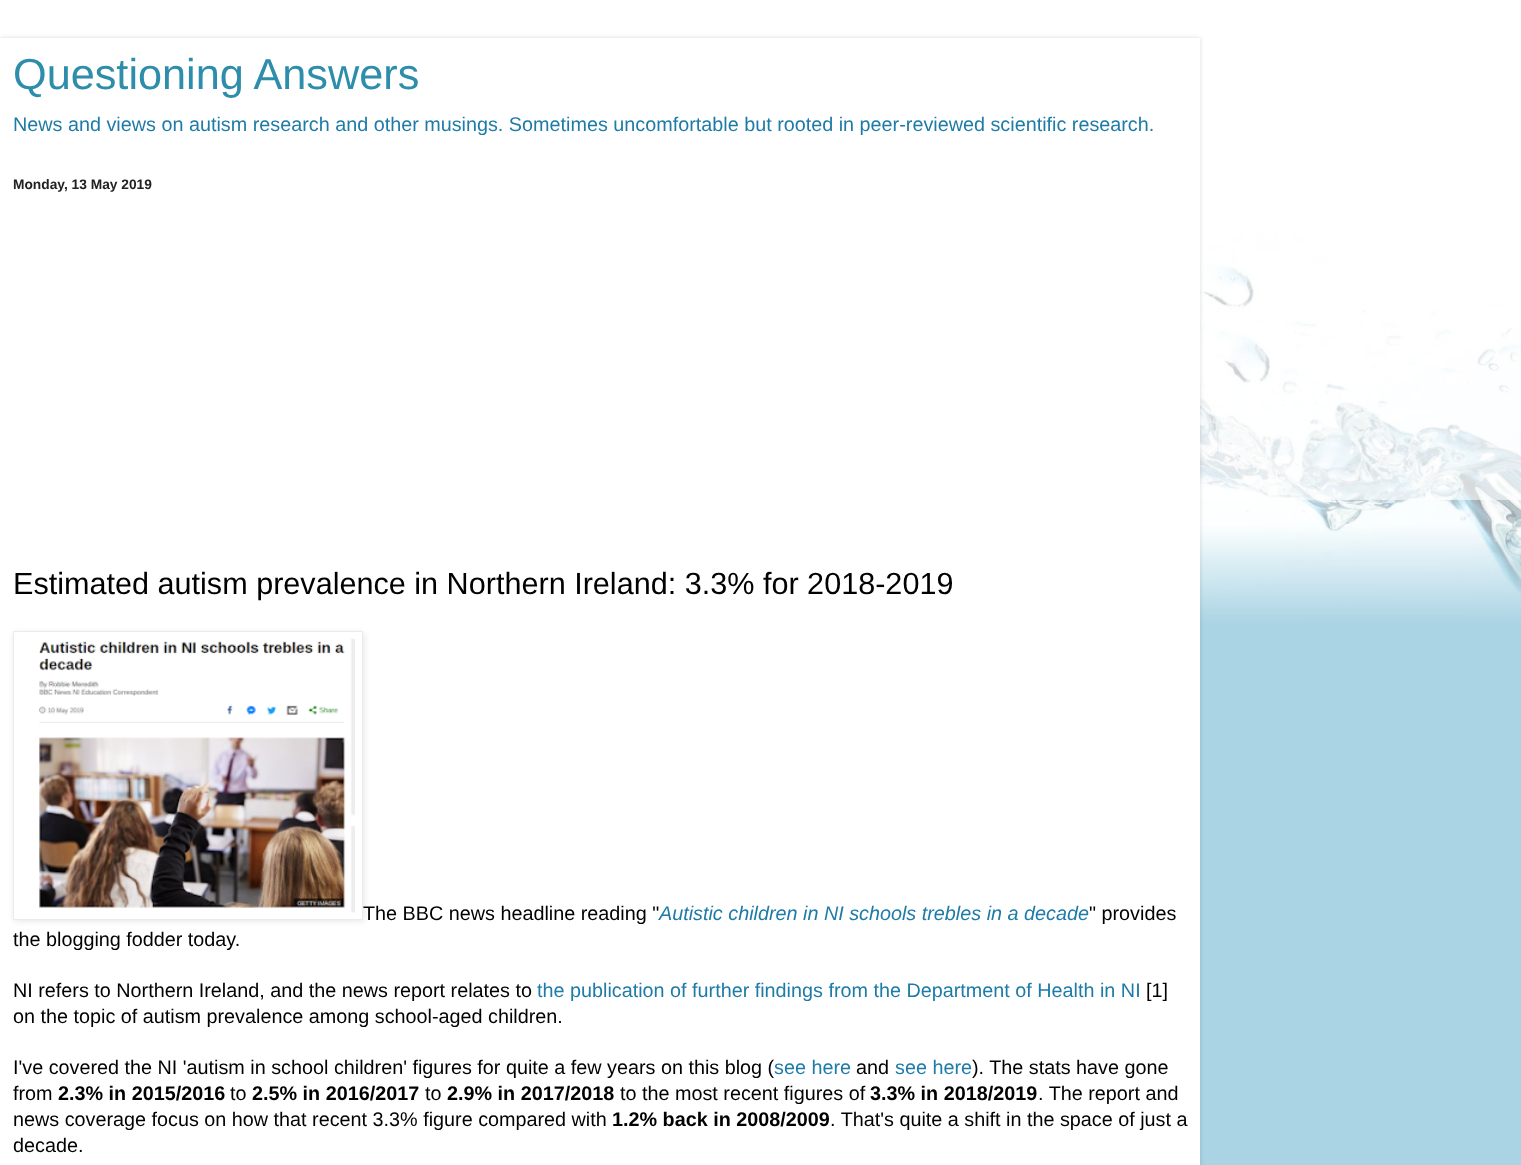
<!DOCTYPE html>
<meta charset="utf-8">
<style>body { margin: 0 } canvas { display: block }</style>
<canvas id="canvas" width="1521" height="1165"></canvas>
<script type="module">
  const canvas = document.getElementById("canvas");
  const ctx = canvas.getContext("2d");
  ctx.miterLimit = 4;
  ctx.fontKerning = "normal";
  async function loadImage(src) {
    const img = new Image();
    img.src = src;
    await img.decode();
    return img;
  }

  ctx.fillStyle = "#ffffff";
  ctx.fillRect(0, 0, 1521, 1165);
  ctx.drawImage(await loadImage("img1.png"), 0, 0, 1521, 1165);
  ctx.fillStyle = "rgba(255, 255, 255, 0.6)";
  ctx.fillRect(1200, 264, 321, 901);
  ctx.drawImage(await loadImage("img3.png"), 1200, 233, 321, 267);
  ctx.fillStyle = "rgba(0, 0, 0, 0.15)";
  ctx.filter = "blur(2px)";
  ctx.beginPath();
  ctx.rect(0, 38, 1200, 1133);
  ctx.fill();
  ctx.filter = "none";
  ctx.fillStyle = "#ffffff";
  ctx.fillRect(0, 38, 1200, 1127);
  ctx.font = "43.25px Liberation Sans";
  ctx.fillStyle = "#2e8dab";
  ctx.fillText("Questioning Answers", 13, 89);
  ctx.font = "19.8px Liberation Sans";
  ctx.fillStyle = "#1e7ba7";
  ctx.fillText("News and views on autism research and other musings. Sometimes uncomfortable but rooted in peer-reviewed scientific research.", 13, 131);
  ctx.font = "bold 13.75px Liberation Sans";
  ctx.fillStyle = "#222222";
  ctx.fillText("Monday, 13 May 2019", 13, 189);
  ctx.font = "30.6px Liberation Sans";
  ctx.fillStyle = "#000000";
  ctx.fillText("Estimated autism prevalence in Northern Ireland: 3.3% for 2018-2019", 13, 594);
  ctx.fillStyle = "rgba(0, 0, 0, 0.1)";
  ctx.filter = "blur(3px)";
  ctx.beginPath();
  ctx.rect(14, 633, 350, 288);
  ctx.fill();
  ctx.filter = "none";
  ctx.font = "19.8px Liberation Sans";
  ctx.fillStyle = "#000000";
  ctx.fillText("The BBC news headline reading \"", 363, 920);
  ctx.fillStyle = "#ffffff";
  ctx.beginPath();
  ctx.rect(13.5, 631.5, 349, 288);
  ctx.fill();
  ctx.strokeStyle = "#ebebeb";
  ctx.stroke();
  ctx.drawImage(await loadImage("img2.png"), 39, 638, 316, 275);
  ctx.font = "italic 19.8px Liberation Sans";
  ctx.fillStyle = "#1e7ba7";
  ctx.fillText("Autistic children in NI schools trebles in a decade", 659, 920);
  ctx.font = "19.8px Liberation Sans";
  ctx.fillStyle = "#000000";
  ctx.fillText("\" provides", 1089, 920);
  ctx.fillText("the blogging fodder today.", 13, 946);
  ctx.fillText("NI refers to Northern Ireland, and the news report relates to", 13, 997);
  ctx.fillStyle = "#1e7ba7";
  ctx.fillText("the publication of further findings from the Department of Health in NI", 537, 997);
  ctx.fillStyle = "#000000";
  ctx.fillText("[1]", 1146, 997);
  ctx.fillText("on the topic of autism prevalence among school-aged children.", 13, 1023);
  ctx.fillText("I've covered the NI 'autism in school children' figures for quite a few years on this blog (", 13, 1074);
  ctx.fillStyle = "#1e7ba7";
  ctx.fillText("see here", 774, 1074);
  ctx.fillStyle = "#000000";
  ctx.fillText("and", 856, 1074);
  ctx.fillStyle = "#1e7ba7";
  ctx.fillText("see here", 895, 1074);
  ctx.fillStyle = "#000000";
  ctx.fillText("). The stats have gone", 972, 1074);
  ctx.fillText("from", 13, 1100);
  ctx.font = "bold 19.8px Liberation Sans";
  ctx.fillText("2.3% in 2015/2016", 58, 1100);
  ctx.font = "19.8px Liberation Sans";
  ctx.fillText("to", 230, 1100);
  ctx.font = "bold 19.8px Liberation Sans";
  ctx.fillText("2.5% in 2016/2017", 252, 1100);
  ctx.font = "19.8px Liberation Sans";
  ctx.fillText("to", 425, 1100);
  ctx.font = "bold 19.8px Liberation Sans";
  ctx.fillText("2.9% in 2017/2018", 447, 1100);
  ctx.font = "19.8px Liberation Sans";
  ctx.fillText("to the most recent figures of", 620, 1100);
  ctx.font = "bold 19.8px Liberation Sans";
  ctx.fillText("3.3% in 2018/2019", 870, 1100);
  ctx.font = "19.8px Liberation Sans";
  ctx.fillText(". The report and", 1038, 1100);
  ctx.fillText("news coverage focus on how that recent 3.3% figure compared with", 13, 1126);
  ctx.font = "bold 19.8px Liberation Sans";
  ctx.fillText("1.2% back in 2008/2009", 612, 1126);
  ctx.font = "19.8px Liberation Sans";
  ctx.fillText(". That's quite a shift in the space of just a", 830, 1126);
  ctx.fillText("decade.", 13, 1152);
</script>
